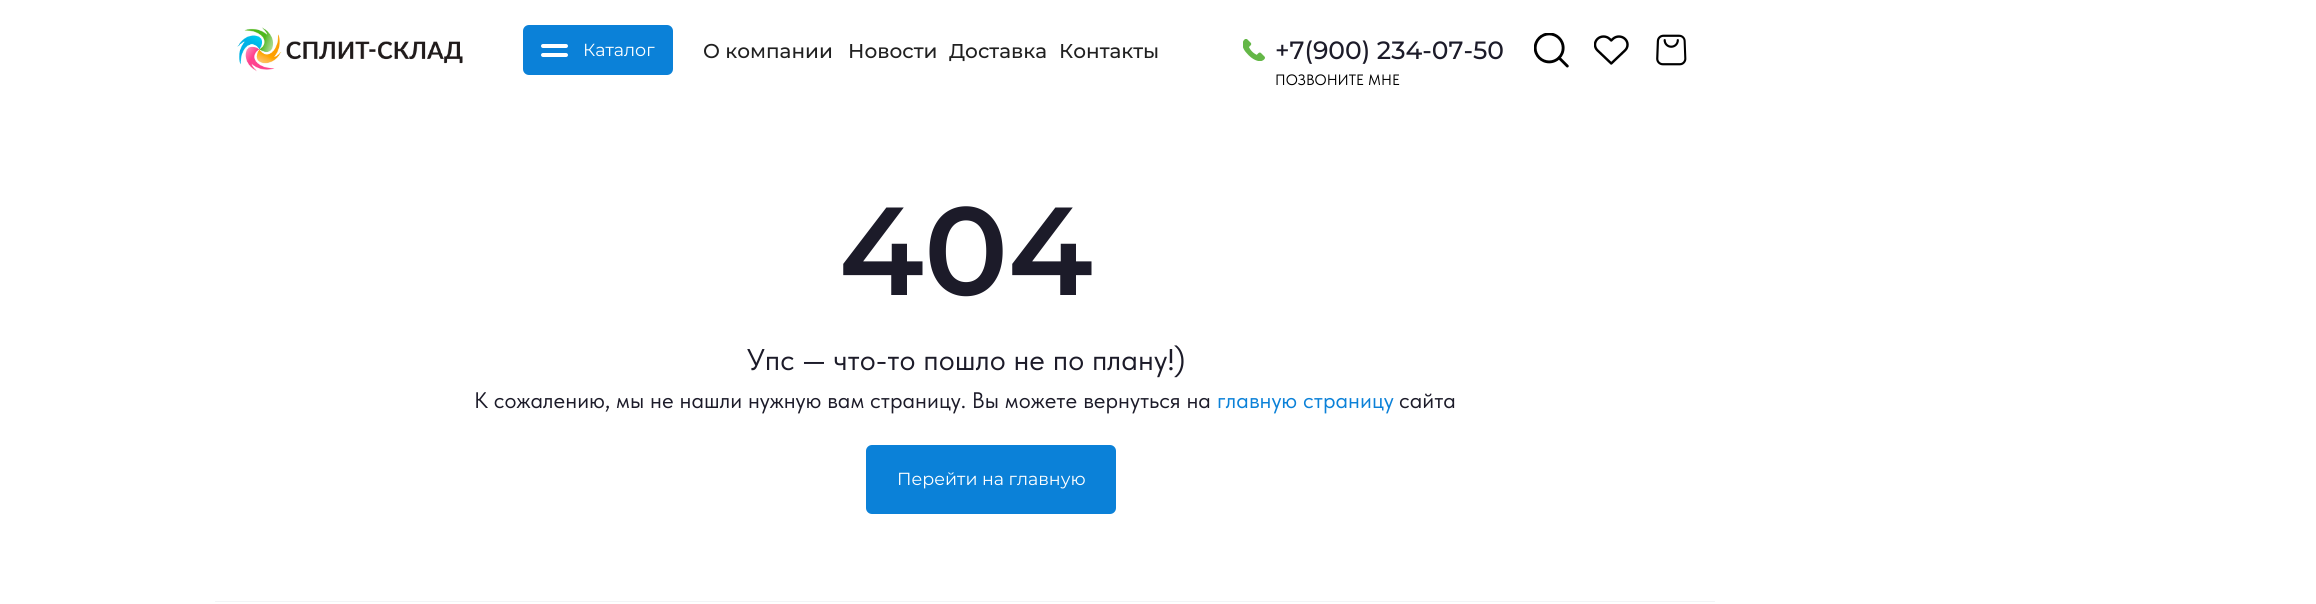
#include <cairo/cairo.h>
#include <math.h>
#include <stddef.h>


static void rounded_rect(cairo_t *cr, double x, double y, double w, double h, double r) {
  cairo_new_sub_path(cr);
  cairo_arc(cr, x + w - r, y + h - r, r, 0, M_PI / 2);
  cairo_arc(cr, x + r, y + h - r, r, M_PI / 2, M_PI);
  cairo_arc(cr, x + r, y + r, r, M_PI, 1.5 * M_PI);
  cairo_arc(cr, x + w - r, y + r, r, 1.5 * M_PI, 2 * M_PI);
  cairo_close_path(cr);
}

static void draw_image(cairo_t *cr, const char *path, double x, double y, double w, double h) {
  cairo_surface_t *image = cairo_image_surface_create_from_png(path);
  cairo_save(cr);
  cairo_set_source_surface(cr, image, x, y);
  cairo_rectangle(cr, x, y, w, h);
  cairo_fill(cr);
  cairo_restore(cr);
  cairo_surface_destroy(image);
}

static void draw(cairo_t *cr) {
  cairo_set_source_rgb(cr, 1, 1, 1);
  cairo_paint(cr);
  draw_image(cr, "images/1.png", 237, 27, 226, 45);
  cairo_set_source_rgb(cr, 11 / 255.0, 129 / 255.0, 216 / 255.0);
  rounded_rect(cr, 523, 25, 150, 50, 6);
  cairo_fill(cr);
  draw_image(cr, "images/2.png", 1243, 39, 22, 22);
  draw_image(cr, "images/3.png", 1534, 33, 35, 35);
  draw_image(cr, "images/4.png", 1594, 35, 35, 30);
  draw_image(cr, "images/5.png", 1656, 34, 31, 32);
  cairo_set_source_rgb(cr, 1, 1, 1);
  rounded_rect(cr, 541, 44, 27, 4, 2);
  cairo_fill(cr);
  rounded_rect(cr, 541, 53, 27, 4, 2);
  cairo_fill(cr);
  cairo_set_source_rgb(cr, 11 / 255.0, 129 / 255.0, 216 / 255.0);
  rounded_rect(cr, 866, 445, 250, 69, 6);
  cairo_fill(cr);
  cairo_set_source_rgb(cr, 243 / 255.0, 244 / 255.0, 246 / 255.0);
  cairo_rectangle(cr, 215, 601, 1500, 1);
  cairo_fill(cr);
  cairo_select_font_face(cr, "Montserrat Medium", CAIRO_FONT_SLANT_NORMAL, CAIRO_FONT_WEIGHT_NORMAL);
  cairo_set_font_size(cr, 25);
  cairo_set_source_rgb(cr, 28 / 255.0, 27 / 255.0, 41 / 255.0);
  cairo_move_to(cr, 1275, 59);
  cairo_show_text(cr, "+7(900) 234-07-50");
  cairo_select_font_face(cr, "Montserrat", CAIRO_FONT_SLANT_NORMAL, CAIRO_FONT_WEIGHT_NORMAL);
  cairo_set_font_size(cr, 17.5);
  cairo_set_source_rgb(cr, 1, 1, 1);
  cairo_move_to(cr, 583, 56);
  cairo_show_text(cr, "Каталог");
  cairo_select_font_face(cr, "Montserrat Medium", CAIRO_FONT_SLANT_NORMAL, CAIRO_FONT_WEIGHT_NORMAL);
  cairo_set_font_size(cr, 20);
  cairo_set_source_rgb(cr, 33 / 255.0, 33 / 255.0, 33 / 255.0);
  cairo_move_to(cr, 703, 58);
  cairo_show_text(cr, "О компании");
  cairo_move_to(cr, 848, 58);
  cairo_show_text(cr, "Новости");
  cairo_move_to(cr, 949, 58);
  cairo_show_text(cr, "Доставка");
  cairo_move_to(cr, 1059, 58);
  cairo_show_text(cr, "Контакты");
  cairo_select_font_face(cr, "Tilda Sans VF", CAIRO_FONT_SLANT_NORMAL, CAIRO_FONT_WEIGHT_NORMAL);
  cairo_set_font_size(cr, 15);
  cairo_set_source_rgb(cr, 0, 0, 0);
  cairo_move_to(cr, 1275, 85);
  cairo_show_text(cr, "ПОЗВОНИТЕ МНЕ");
  cairo_select_font_face(cr, "Montserrat SemiBold", CAIRO_FONT_SLANT_NORMAL, CAIRO_FONT_WEIGHT_NORMAL);
  cairo_set_font_size(cr, 125);
  cairo_set_source_rgb(cr, 28 / 255.0, 27 / 255.0, 41 / 255.0);
  cairo_move_to(cr, 839, 295);
  cairo_show_text(cr, "404");
  cairo_select_font_face(cr, "Tilda Sans VF", CAIRO_FONT_SLANT_NORMAL, CAIRO_FONT_WEIGHT_NORMAL);
  cairo_set_font_size(cr, 30);
  cairo_move_to(cr, 747, 370);
  cairo_show_text(cr, "Упс — что-то пошло не по плану!)");
  cairo_set_font_size(cr, 22.5);
  cairo_move_to(cr, 474, 408);
  cairo_show_text(cr, "К сожалению, мы не нашли нужную вам страницу. Вы можете вернуться на");
  cairo_set_source_rgb(cr, 11 / 255.0, 129 / 255.0, 216 / 255.0);
  cairo_move_to(cr, 1217, 408);
  cairo_show_text(cr, "главную страницу");
  cairo_set_source_rgb(cr, 28 / 255.0, 27 / 255.0, 41 / 255.0);
  cairo_move_to(cr, 1399, 408);
  cairo_show_text(cr, "сайта");
  cairo_select_font_face(cr, "Montserrat", CAIRO_FONT_SLANT_NORMAL, CAIRO_FONT_WEIGHT_NORMAL);
  cairo_set_font_size(cr, 17.5);
  cairo_set_source_rgb(cr, 1, 1, 1);
  cairo_move_to(cr, 897, 485);
  cairo_show_text(cr, "Перейти на главную");
}

int main(void) {
  cairo_surface_t *surface = cairo_image_surface_create(CAIRO_FORMAT_RGB24, 2316, 604);
  cairo_t *cr = cairo_create(surface);
  cairo_font_options_t *options = cairo_font_options_create();
  cairo_font_options_set_hint_metrics(options, CAIRO_HINT_METRICS_OFF);
  cairo_font_options_set_hint_style(options, CAIRO_HINT_STYLE_NONE);
  cairo_set_font_options(cr, options);
  cairo_set_miter_limit(cr, 4);
  draw(cr);
  cairo_surface_write_to_png(surface, "out.png");
  cairo_font_options_destroy(options);
  cairo_destroy(cr);
  cairo_surface_destroy(surface);
  return 0;
}
